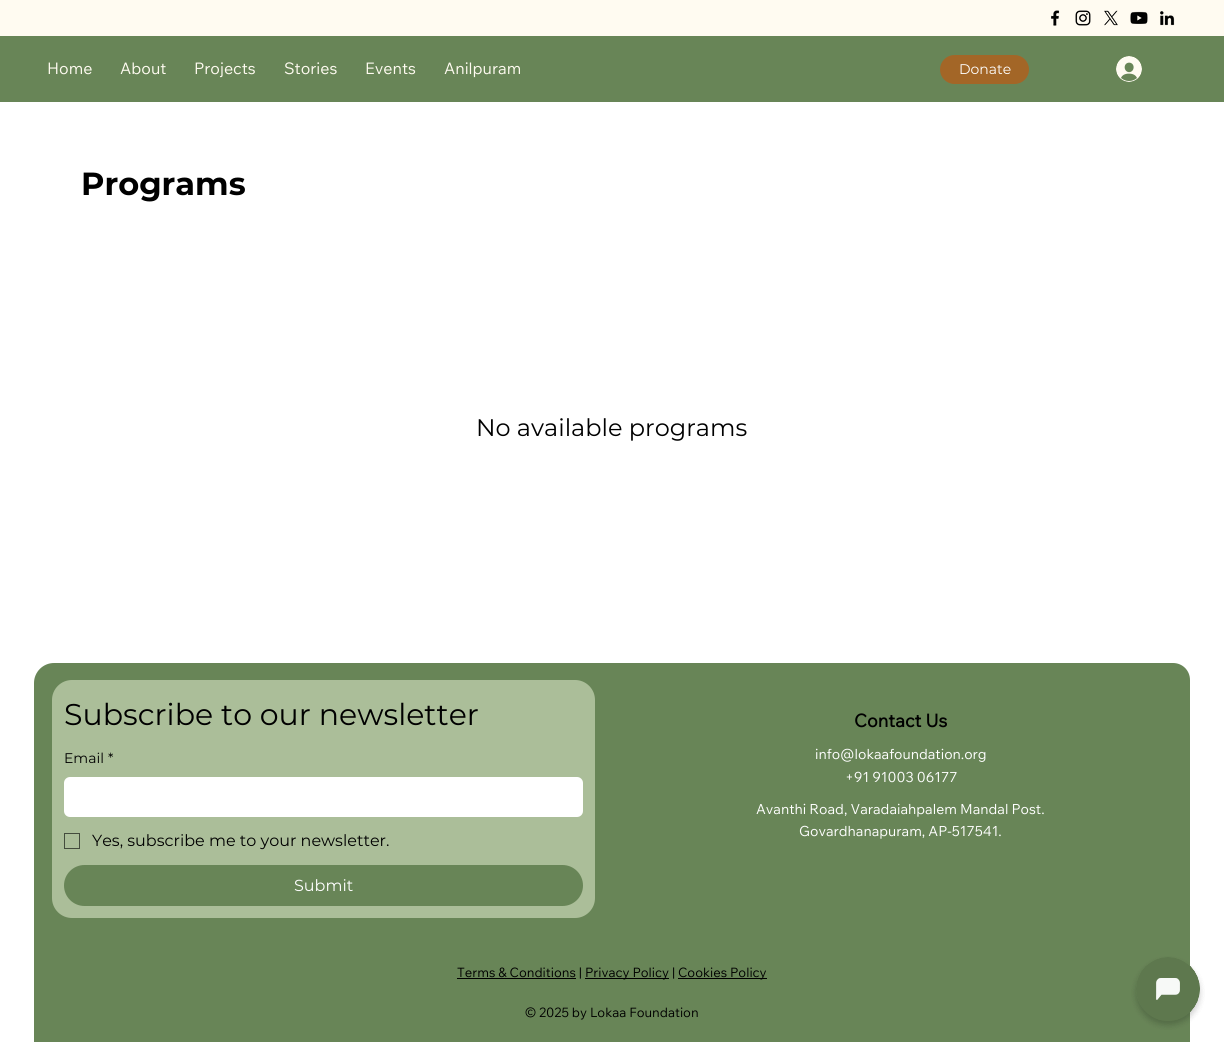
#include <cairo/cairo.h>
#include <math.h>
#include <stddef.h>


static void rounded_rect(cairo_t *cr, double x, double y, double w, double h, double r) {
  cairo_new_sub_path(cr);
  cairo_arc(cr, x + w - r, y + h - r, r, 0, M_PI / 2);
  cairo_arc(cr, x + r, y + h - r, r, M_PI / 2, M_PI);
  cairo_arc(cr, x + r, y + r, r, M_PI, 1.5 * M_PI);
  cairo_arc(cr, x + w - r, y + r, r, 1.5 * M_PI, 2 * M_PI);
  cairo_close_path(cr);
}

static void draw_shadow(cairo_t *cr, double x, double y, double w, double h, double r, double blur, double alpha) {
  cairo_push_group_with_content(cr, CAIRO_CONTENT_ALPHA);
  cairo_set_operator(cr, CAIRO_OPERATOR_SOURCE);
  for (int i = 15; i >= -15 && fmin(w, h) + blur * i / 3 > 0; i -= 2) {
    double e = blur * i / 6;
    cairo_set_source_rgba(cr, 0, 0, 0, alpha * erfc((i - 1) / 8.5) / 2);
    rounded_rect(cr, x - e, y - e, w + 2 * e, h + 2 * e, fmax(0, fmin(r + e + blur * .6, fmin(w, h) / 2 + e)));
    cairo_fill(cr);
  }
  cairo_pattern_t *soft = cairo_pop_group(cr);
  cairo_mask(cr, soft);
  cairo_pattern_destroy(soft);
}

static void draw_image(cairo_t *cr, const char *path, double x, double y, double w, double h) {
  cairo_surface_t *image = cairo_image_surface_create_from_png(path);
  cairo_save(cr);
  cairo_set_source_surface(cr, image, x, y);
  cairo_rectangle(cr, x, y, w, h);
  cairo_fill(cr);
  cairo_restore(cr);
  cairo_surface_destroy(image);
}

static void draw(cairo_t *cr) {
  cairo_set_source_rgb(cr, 1, 1, 1);
  cairo_paint(cr);
  cairo_set_source_rgb(cr, 1, 251 / 255.0, 241 / 255.0);
  cairo_rectangle(cr, 0, 0, 1224, 36);
  cairo_fill(cr);
  draw_image(cr, "images/1.png", 1051, 10, 9, 16);
  draw_image(cr, "images/2.png", 1075, 10, 16, 16);
  draw_image(cr, "images/3.png", 1104, 10, 14, 16);
  draw_image(cr, "images/4.png", 1130, 11, 18, 13);
  draw_image(cr, "images/5.png", 1160, 11, 15, 15);
  cairo_set_source_rgb(cr, 104 / 255.0, 133 / 255.0, 87 / 255.0);
  cairo_rectangle(cr, 0, 36, 1224, 66);
  cairo_fill(cr);
  cairo_set_source_rgb(cr, 163 / 255.0, 102 / 255.0, 39 / 255.0);
  rounded_rect(cr, 940, 55, 89, 29, 14.5);
  cairo_fill(cr);
  draw_image(cr, "images/6.png", 1116, 56, 26, 26);
  cairo_set_source_rgb(cr, 104 / 255.0, 133 / 255.0, 87 / 255.0);
  cairo_new_path(cr);
  cairo_move_to(cr, 54, 663);
  cairo_line_to(cr, 612, 663);
  cairo_line_to(cr, 612, 943);
  cairo_line_to(cr, 34, 943);
  cairo_line_to(cr, 34, 683);
  cairo_curve_to(cr, 34, 672, 43, 663, 54, 663);
  cairo_close_path(cr);
  cairo_fill(cr);
  cairo_set_source_rgb(cr, 171 / 255.0, 190 / 255.0, 153 / 255.0);
  rounded_rect(cr, 52, 680, 543, 238, 20);
  cairo_fill(cr);
  cairo_set_source_rgb(cr, 1, 1, 1);
  rounded_rect(cr, 64, 777, 519, 40, 6);
  cairo_fill(cr);
  cairo_rectangle(cr, 64.5, 833.5, 15, 15);
  cairo_set_source_rgb(cr, 68 / 255.0, 76 / 255.0, 61 / 255.0);
  cairo_set_line_width(cr, 1);
  cairo_stroke(cr);
  cairo_set_source_rgb(cr, 104 / 255.0, 133 / 255.0, 87 / 255.0);
  rounded_rect(cr, 64, 865, 519, 41, 20.5);
  cairo_fill(cr);
  cairo_new_path(cr);
  cairo_move_to(cr, 612, 663);
  cairo_line_to(cr, 1173, 663);
  cairo_curve_to(cr, 1182.5, 663, 1190, 670.5, 1190, 680);
  cairo_line_to(cr, 1190, 943);
  cairo_line_to(cr, 612, 943);
  cairo_close_path(cr);
  cairo_fill(cr);
  cairo_rectangle(cr, 34, 943, 1156, 99);
  cairo_fill(cr);
  cairo_set_source_rgb(cr, 0, 0, 0);
  cairo_rectangle(cr, 457, 978, 119, 1);
  cairo_fill(cr);
  cairo_rectangle(cr, 585, 978, 84, 1);
  cairo_fill(cr);
  cairo_rectangle(cr, 678, 978, 89, 1);
  cairo_fill(cr);
  cairo_set_source_rgb(cr, 0, 0, 0);
  draw_shadow(cr, 1136, 961, 64, 64, 32, 3, 0.1);
  draw_image(cr, "images/7.png", 1136, 957, 64, 64);
  cairo_save(cr);
  cairo_set_fill_rule(cr, CAIRO_FILL_RULE_EVEN_ODD);
  cairo_new_path(cr);
  cairo_move_to(cr, 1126, 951);
  cairo_line_to(cr, 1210, 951);
  cairo_line_to(cr, 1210, 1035);
  cairo_line_to(cr, 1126, 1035);
  cairo_close_path(cr);
  cairo_move_to(cr, 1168, 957);
  cairo_curve_to(cr, 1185.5, 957, 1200, 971.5, 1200, 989);
  cairo_curve_to(cr, 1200, 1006.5, 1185.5, 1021, 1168, 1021);
  cairo_curve_to(cr, 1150.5, 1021, 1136, 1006.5, 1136, 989);
  cairo_curve_to(cr, 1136, 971.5, 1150.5, 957, 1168, 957);
  cairo_close_path(cr);
  cairo_clip(cr);
  draw_shadow(cr, 1136, 961, 64, 64, 32, 3, 0.1);
  cairo_restore(cr);
  draw_image(cr, "images/8.png", 1190, 966, 10, 46);
  cairo_select_font_face(cr, "Wix Madefor Text", CAIRO_FONT_SLANT_NORMAL, CAIRO_FONT_WEIGHT_NORMAL);
  cairo_set_font_size(cr, 16);
  cairo_set_source_rgb(cr, 1, 251 / 255.0, 241 / 255.0);
  cairo_move_to(cr, 47, 74);
  cairo_show_text(cr, "Home");
  cairo_move_to(cr, 120, 74);
  cairo_show_text(cr, "About");
  cairo_move_to(cr, 194, 74);
  cairo_show_text(cr, "Projects");
  cairo_move_to(cr, 284, 74);
  cairo_show_text(cr, "Stories");
  cairo_move_to(cr, 365, 74);
  cairo_show_text(cr, "Events");
  cairo_move_to(cr, 444, 74);
  cairo_show_text(cr, "Anilpuram");
  cairo_select_font_face(cr, "Montserrat", CAIRO_FONT_SLANT_NORMAL, CAIRO_FONT_WEIGHT_NORMAL);
  cairo_set_font_size(cr, 14);
  cairo_set_source_rgb(cr, 1, 1, 1);
  cairo_move_to(cr, 959, 74);
  cairo_show_text(cr, "Donate");
  cairo_select_font_face(cr, "Montserrat", CAIRO_FONT_SLANT_NORMAL, CAIRO_FONT_WEIGHT_BOLD);
  cairo_set_font_size(cr, 32);
  cairo_set_source_rgb(cr, 0, 0, 0);
  cairo_move_to(cr, 81, 195);
  cairo_show_text(cr, "Programs");
  cairo_select_font_face(cr, "Montserrat", CAIRO_FONT_SLANT_NORMAL, CAIRO_FONT_WEIGHT_NORMAL);
  cairo_set_font_size(cr, 24);
  cairo_move_to(cr, 476, 436);
  cairo_show_text(cr, "No available programs");
  cairo_set_font_size(cr, 30);
  cairo_move_to(cr, 64, 725);
  cairo_show_text(cr, "Subscribe to our newsletter");
  cairo_set_font_size(cr, 14);
  cairo_move_to(cr, 64, 763);
  cairo_show_text(cr, "Email");
  cairo_move_to(cr, 108, 763);
  cairo_show_text(cr, "*");
  cairo_set_font_size(cr, 16);
  cairo_move_to(cr, 92, 846);
  cairo_show_text(cr, "Yes, subscribe me to your newsletter.");
  cairo_set_source_rgb(cr, 1, 1, 1);
  cairo_move_to(cr, 294, 891);
  cairo_show_text(cr, "Submit");
  cairo_select_font_face(cr, "Wix Madefor Text", CAIRO_FONT_SLANT_NORMAL, CAIRO_FONT_WEIGHT_BOLD);
  cairo_set_font_size(cr, 18);
  cairo_set_source_rgb(cr, 0, 0, 0);
  cairo_move_to(cr, 854, 727);
  cairo_show_text(cr, "Contact Us");
  cairo_select_font_face(cr, "Wix Madefor Text", CAIRO_FONT_SLANT_NORMAL, CAIRO_FONT_WEIGHT_NORMAL);
  cairo_set_font_size(cr, 14);
  cairo_set_source_rgb(cr, 1, 1, 1);
  cairo_move_to(cr, 815, 759);
  cairo_show_text(cr, "info@lokaafoundation.org");
  cairo_move_to(cr, 845, 782);
  cairo_show_text(cr, "+91 91003 06177");
  cairo_move_to(cr, 756, 814);
  cairo_show_text(cr, "Avanthi Road, Varadaiahpalem Mandal Post.");
  cairo_move_to(cr, 799, 836);
  cairo_show_text(cr, "Govardhanapuram, AP-517541.");
  cairo_set_font_size(cr, 13);
  cairo_set_source_rgb(cr, 0, 0, 0);
  cairo_move_to(cr, 457, 977);
  cairo_show_text(cr, "Terms & Conditions |");
  cairo_move_to(cr, 585, 977);
  cairo_show_text(cr, "Privacy Policy |");
  cairo_move_to(cr, 678, 977);
  cairo_show_text(cr, "Cookies Policy");
  cairo_move_to(cr, 525, 1017);
  cairo_show_text(cr, "© 2025 by Lokaa Foundation");
}

int main(void) {
  cairo_surface_t *surface = cairo_image_surface_create(CAIRO_FORMAT_RGB24, 1224, 1045);
  cairo_t *cr = cairo_create(surface);
  cairo_font_options_t *options = cairo_font_options_create();
  cairo_font_options_set_hint_metrics(options, CAIRO_HINT_METRICS_OFF);
  cairo_font_options_set_hint_style(options, CAIRO_HINT_STYLE_NONE);
  cairo_set_font_options(cr, options);
  cairo_set_miter_limit(cr, 4);
  draw(cr);
  cairo_surface_write_to_png(surface, "out.png");
  cairo_font_options_destroy(options);
  cairo_destroy(cr);
  cairo_surface_destroy(surface);
  return 0;
}
